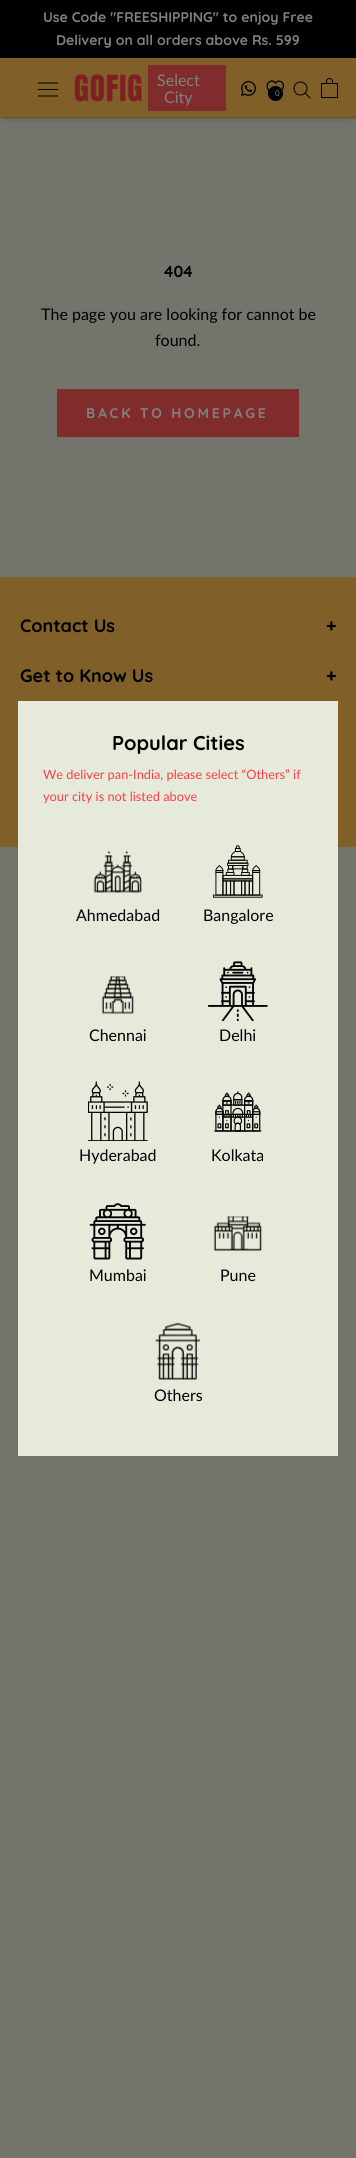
#include <cairo/cairo.h>
#include <math.h>
#include <stddef.h>


static void draw_spaced(cairo_t *cr, double x, double y, const char *s, double letter, double word) {
  cairo_move_to(cr, x, y);
  while (*s) {
    char ch[5] = {0};
    int n = 0;
    do ch[n++] = *s++; while ((*s & 0xC0) == 0x80);
    cairo_show_text(cr, ch);
    cairo_rel_move_to(cr, letter + word * (*ch == ' '), 0);
  }
}

static void rounded_rect(cairo_t *cr, double x, double y, double w, double h, double r) {
  cairo_new_sub_path(cr);
  cairo_arc(cr, x + w - r, y + h - r, r, 0, M_PI / 2);
  cairo_arc(cr, x + r, y + h - r, r, M_PI / 2, M_PI);
  cairo_arc(cr, x + r, y + r, r, M_PI, 1.5 * M_PI);
  cairo_arc(cr, x + w - r, y + r, r, 1.5 * M_PI, 2 * M_PI);
  cairo_close_path(cr);
}

static void draw_shadow(cairo_t *cr, double x, double y, double w, double h, double r, double blur, double alpha) {
  cairo_push_group_with_content(cr, CAIRO_CONTENT_ALPHA);
  cairo_set_operator(cr, CAIRO_OPERATOR_SOURCE);
  for (int i = 15; i >= -15 && fmin(w, h) + blur * i / 3 > 0; i -= 2) {
    double e = blur * i / 6;
    cairo_set_source_rgba(cr, 0, 0, 0, alpha * erfc((i - 1) / 8.5) / 2);
    rounded_rect(cr, x - e, y - e, w + 2 * e, h + 2 * e, fmax(0, fmin(r + e + blur * .6, fmin(w, h) / 2 + e)));
    cairo_fill(cr);
  }
  cairo_pattern_t *soft = cairo_pop_group(cr);
  cairo_mask(cr, soft);
  cairo_pattern_destroy(soft);
}

static void draw_image(cairo_t *cr, const char *path, double x, double y, double w, double h) {
  cairo_surface_t *image = cairo_image_surface_create_from_png(path);
  cairo_save(cr);
  cairo_set_source_surface(cr, image, x, y);
  cairo_rectangle(cr, x, y, w, h);
  cairo_fill(cr);
  cairo_restore(cr);
  cairo_surface_destroy(image);
}

static void draw(cairo_t *cr) {
  cairo_set_source_rgb(cr, 115 / 255.0, 117 / 255.0, 109 / 255.0);
  cairo_paint(cr);
  cairo_set_source_rgb(cr, 0, 0, 0);
  cairo_rectangle(cr, 0, 0, 356, 58);
  cairo_fill(cr);
  cairo_set_source_rgb(cr, 128 / 255.0, 96 / 255.0, 40 / 255.0);
  cairo_rectangle(cr, 0, 58, 356, 59);
  cairo_fill(cr);
  cairo_set_source_rgb(cr, 109 / 255.0, 82 / 255.0, 34 / 255.0);
  cairo_rectangle(cr, 0, 117, 356, 1);
  cairo_fill(cr);
  cairo_save(cr);
  cairo_set_fill_rule(cr, CAIRO_FILL_RULE_EVEN_ODD);
  cairo_new_path(cr);
  cairo_move_to(cr, 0, 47);
  cairo_line_to(cr, 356, 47);
  cairo_line_to(cr, 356, 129);
  cairo_line_to(cr, 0, 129);
  cairo_close_path(cr);
  cairo_move_to(cr, 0, 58);
  cairo_line_to(cr, 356, 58);
  cairo_line_to(cr, 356, 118);
  cairo_line_to(cr, 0, 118);
  cairo_close_path(cr);
  cairo_clip(cr);
  cairo_set_source_rgb(cr, 0, 0, 0);
  draw_shadow(cr, 5, 63, 346, 50, 0, 5, 1);
  cairo_restore(cr);
  draw_image(cr, "images/1.png", 38, 82, 20, 15);
  draw_image(cr, "images/2.png", 74, 74, 68, 28);
  cairo_set_source_rgb(cr, 128 / 255.0, 44 / 255.0, 44 / 255.0);
  cairo_rectangle(cr, 148, 65, 78, 46);
  cairo_fill(cr);
  draw_image(cr, "images/3.png", 241, 81, 15, 15);
  cairo_new_path(cr);
  cairo_move_to(cr, 275.5, 95.5);
  cairo_line_to(cr, 271.5, 93.5);
  cairo_curve_to(cr, 270, 92, 268, 90, 267.5, 88);
  cairo_curve_to(cr, 265.5, 82.5, 272, 78.5, 275.5, 83);
  cairo_curve_to(cr, 279.5, 77.5, 289, 85, 279, 93);
  cairo_close_path(cr);
  cairo_set_source_rgb(cr, 0, 0, 0);
  cairo_set_line_width(cr, 1.3);
  cairo_stroke(cr);
  cairo_arc(cr, 275.5, 93.5, 7.5, 0, 2 * M_PI);
  cairo_fill(cr);
  cairo_new_path(cr);
  cairo_move_to(cr, 310, 98);
  cairo_line_to(cr, 305, 93);
  cairo_set_line_width(cr, 1);
  cairo_set_line_cap(cr, CAIRO_LINE_CAP_SQUARE);
  cairo_stroke(cr);
  cairo_arc(cr, 300.5, 88.5, 6.5, 0, 2 * M_PI);
  cairo_set_line_cap(cr, CAIRO_LINE_CAP_BUTT);
  cairo_stroke(cr);
  draw_image(cr, "images/4.png", 321, 78, 17, 20);
  cairo_rectangle(cr, 57.5, 389.5, 241, 47);
  cairo_set_source_rgb(cr, 128 / 255.0, 44 / 255.0, 44 / 255.0);
  cairo_stroke(cr);
  cairo_rectangle(cr, 58, 390, 240, 46);
  cairo_fill(cr);
  cairo_set_source_rgb(cr, 128 / 255.0, 96 / 255.0, 40 / 255.0);
  cairo_rectangle(cr, 0, 577, 356, 270);
  cairo_fill(cr);
  cairo_set_source_rgb(cr, 230 / 255.0, 234 / 255.0, 218 / 255.0);
  cairo_rectangle(cr, 18, 701, 320, 755);
  cairo_fill(cr);
  draw_image(cr, "images/5.png", 93, 851, 49, 42);
  draw_image(cr, "images/6.png", 212, 845, 51, 53);
  draw_image(cr, "images/7.png", 101, 976, 33, 38);
  draw_image(cr, "images/8.png", 208, 961, 60, 60);
  draw_image(cr, "images/9.png", 88, 1081, 60, 60);
  draw_image(cr, "images/10.png", 214, 1091, 48, 41);
  draw_image(cr, "images/11.png", 89, 1203, 57, 57);
  draw_image(cr, "images/12.png", 213, 1216, 49, 35);
  draw_image(cr, "images/13.png", 155, 1322, 46, 58);
  cairo_select_font_face(cr, "Quicksand", CAIRO_FONT_SLANT_NORMAL, CAIRO_FONT_WEIGHT_BOLD);
  cairo_set_font_size(cr, 14);
  cairo_set_source_rgb(cr, 128 / 255.0, 128 / 255.0, 128 / 255.0);
  cairo_move_to(cr, 43, 22);
  cairo_show_text(cr, "Use Code \"FREESHIPPING\" to enjoy Free");
  cairo_move_to(cr, 56, 45);
  cairo_show_text(cr, "Delivery on all orders above Rs. 599");
  cairo_select_font_face(cr, "Lato", CAIRO_FONT_SLANT_NORMAL, CAIRO_FONT_WEIGHT_NORMAL);
  cairo_set_font_size(cr, 16);
  cairo_move_to(cr, 157, 86);
  cairo_show_text(cr, "Select");
  cairo_move_to(cr, 164, 103);
  cairo_show_text(cr, "City");
  cairo_set_font_size(cr, 8);
  cairo_move_to(cr, 275, 96);
  cairo_show_text(cr, "0");
  cairo_select_font_face(cr, "Quicksand", CAIRO_FONT_SLANT_NORMAL, CAIRO_FONT_WEIGHT_BOLD);
  cairo_set_font_size(cr, 16);
  cairo_set_source_rgb(cr, 0, 0, 0);
  cairo_move_to(cr, 164, 277);
  cairo_show_text(cr, "404");
  cairo_select_font_face(cr, "Lato", CAIRO_FONT_SLANT_NORMAL, CAIRO_FONT_WEIGHT_NORMAL);
  cairo_move_to(cr, 41, 320);
  cairo_show_text(cr, "The page you are looking for cannot be");
  cairo_move_to(cr, 155, 346);
  cairo_show_text(cr, "found.");
  cairo_select_font_face(cr, "Quicksand", CAIRO_FONT_SLANT_NORMAL, CAIRO_FONT_WEIGHT_BOLD);
  cairo_set_font_size(cr, 14);
  cairo_set_source_rgb(cr, 128 / 255.0, 128 / 255.0, 128 / 255.0);
  draw_spaced(cr, 86, 418, "BACK TO HOMEPAGE", 2.75, 0);
  cairo_set_font_size(cr, 18);
  cairo_set_source_rgb(cr, 0, 0, 0);
  cairo_move_to(cr, 20, 632);
  cairo_show_text(cr, "Contact Us");
  cairo_move_to(cr, 326, 632);
  cairo_show_text(cr, "+");
  cairo_move_to(cr, 20, 682);
  cairo_show_text(cr, "Get to Know Us");
  cairo_move_to(cr, 326, 682);
  cairo_show_text(cr, "+");
  cairo_set_font_size(cr, 20);
  cairo_move_to(cr, 112, 750);
  cairo_show_text(cr, "Popular Cities");
  cairo_select_font_face(cr, "Lato", CAIRO_FONT_SLANT_NORMAL, CAIRO_FONT_WEIGHT_NORMAL);
  cairo_set_font_size(cr, 12.8);
  cairo_set_source_rgb(cr, 253 / 255.0, 61 / 255.0, 71 / 255.0);
  cairo_move_to(cr, 43, 779);
  cairo_show_text(cr, "We deliver pan-India, please select “Others” if");
  cairo_move_to(cr, 43, 801);
  cairo_show_text(cr, "your city is not listed above");
  cairo_set_font_size(cr, 16);
  cairo_set_source_rgb(cr, 0, 0, 0);
  cairo_move_to(cr, 76, 921);
  cairo_show_text(cr, "Ahmedabad");
  cairo_move_to(cr, 203, 921);
  cairo_show_text(cr, "Bangalore");
  cairo_move_to(cr, 89, 1041);
  cairo_show_text(cr, "Chennai");
  cairo_move_to(cr, 219, 1041);
  cairo_show_text(cr, "Delhi");
  cairo_move_to(cr, 79, 1161);
  cairo_show_text(cr, "Hyderabad");
  cairo_move_to(cr, 211, 1161);
  cairo_show_text(cr, "Kolkata");
  cairo_move_to(cr, 89, 1281);
  cairo_show_text(cr, "Mumbai");
  cairo_move_to(cr, 220, 1281);
  cairo_show_text(cr, "Pune");
  cairo_move_to(cr, 154, 1401);
  cairo_show_text(cr, "Others");
}

int main(void) {
  cairo_surface_t *surface = cairo_image_surface_create(CAIRO_FORMAT_RGB24, 356, 2158);
  cairo_t *cr = cairo_create(surface);
  cairo_font_options_t *options = cairo_font_options_create();
  cairo_font_options_set_hint_metrics(options, CAIRO_HINT_METRICS_OFF);
  cairo_font_options_set_hint_style(options, CAIRO_HINT_STYLE_NONE);
  cairo_set_font_options(cr, options);
  cairo_set_miter_limit(cr, 4);
  draw(cr);
  cairo_surface_write_to_png(surface, "out.png");
  cairo_font_options_destroy(options);
  cairo_destroy(cr);
  cairo_surface_destroy(surface);
  return 0;
}
